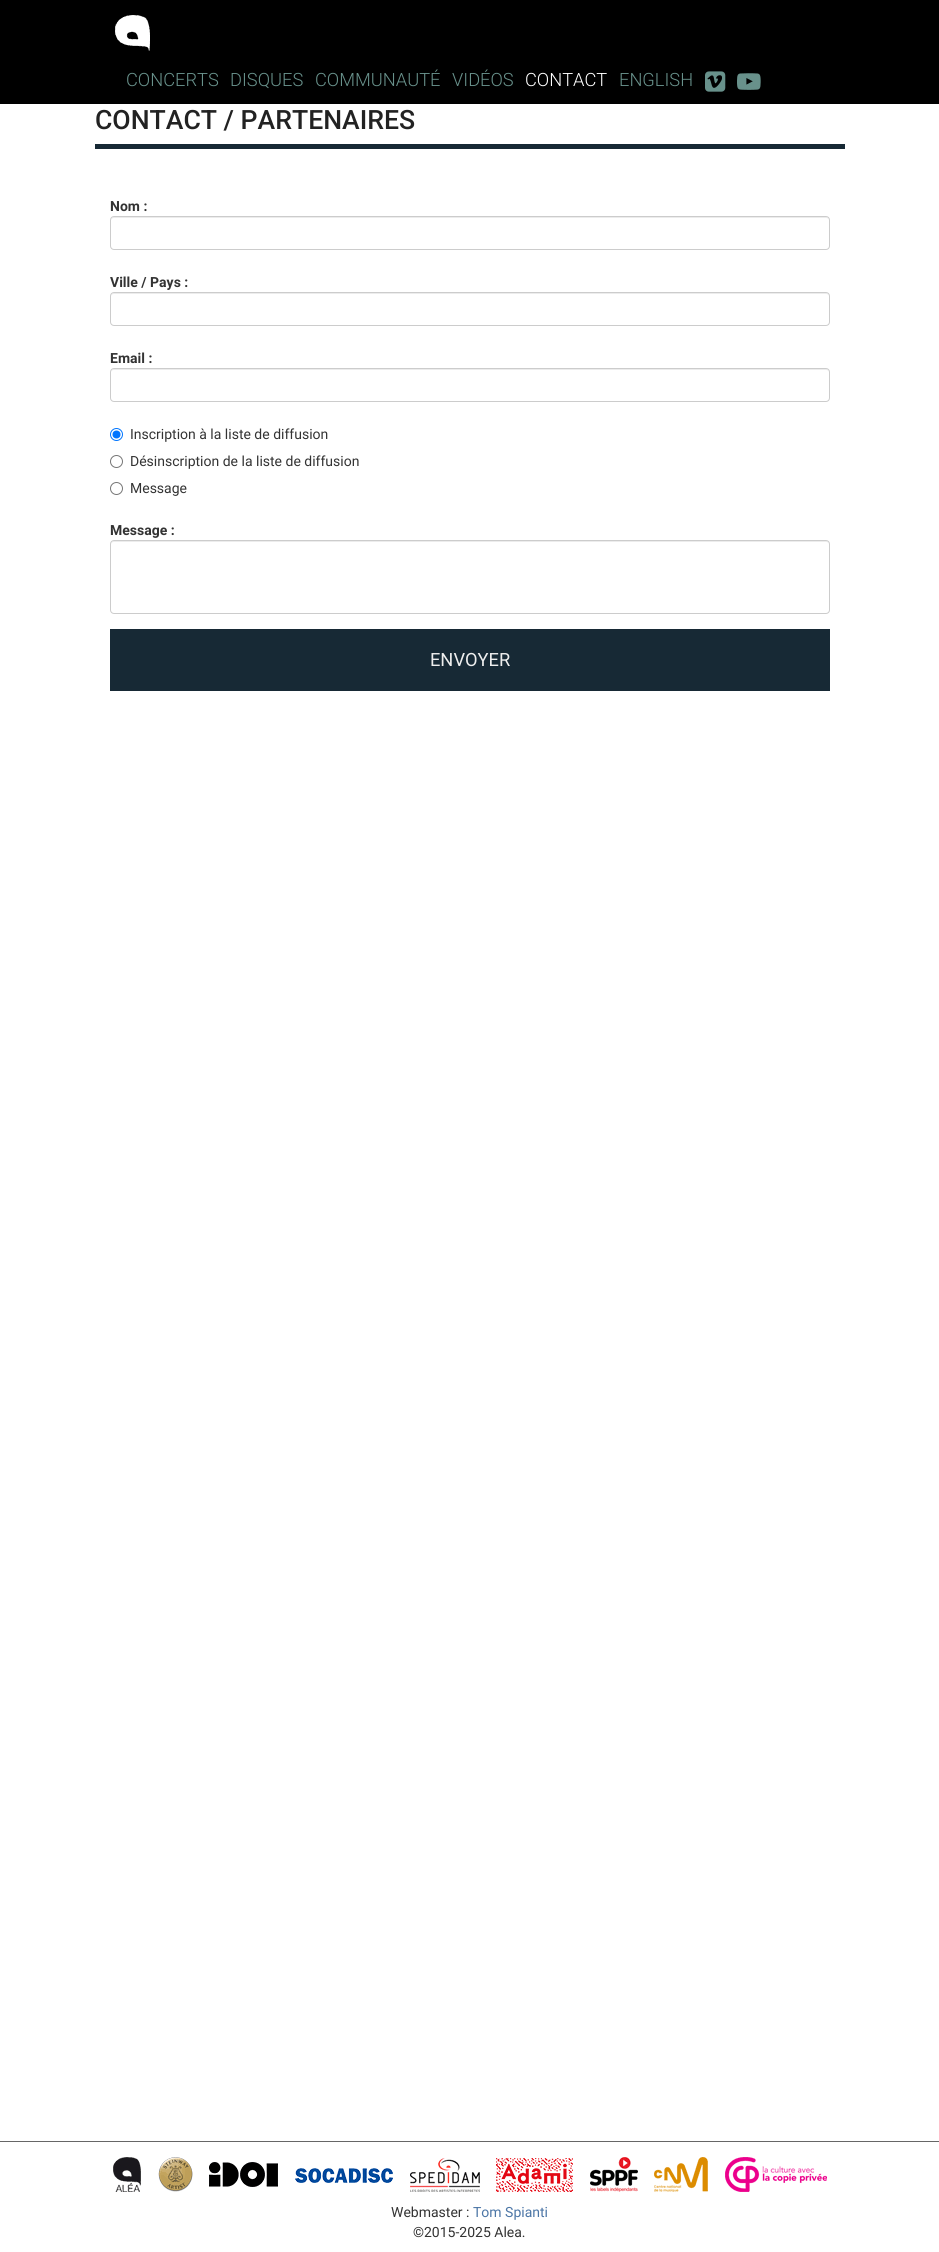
#include <cairo/cairo.h>
#include <math.h>
#include <stddef.h>


static void rounded_rect(cairo_t *cr, double x, double y, double w, double h, double r) {
  cairo_new_sub_path(cr);
  cairo_arc(cr, x + w - r, y + h - r, r, 0, M_PI / 2);
  cairo_arc(cr, x + r, y + h - r, r, M_PI / 2, M_PI);
  cairo_arc(cr, x + r, y + r, r, M_PI, 1.5 * M_PI);
  cairo_arc(cr, x + w - r, y + r, r, 1.5 * M_PI, 2 * M_PI);
  cairo_close_path(cr);
}

static void draw_image(cairo_t *cr, const char *path, double x, double y, double w, double h) {
  cairo_surface_t *image = cairo_image_surface_create_from_png(path);
  cairo_save(cr);
  cairo_set_source_surface(cr, image, x, y);
  cairo_rectangle(cr, x, y, w, h);
  cairo_fill(cr);
  cairo_restore(cr);
  cairo_surface_destroy(image);
}

static void draw(cairo_t *cr) {
  cairo_set_source_rgb(cr, 1, 1, 1);
  cairo_paint(cr);
  cairo_set_source_rgb(cr, 0, 0, 0);
  cairo_rectangle(cr, 0, 0, 939, 104);
  cairo_fill(cr);
  draw_image(cr, "images/1.png", 115, 15, 35, 36);
  draw_image(cr, "images/2.png", 705, 71, 21, 21);
  draw_image(cr, "images/3.png", 737, 73, 24, 17);
  cairo_set_source_rgb(cr, 23 / 255.0, 41 / 255.0, 53 / 255.0);
  cairo_rectangle(cr, 95, 144, 750, 5);
  cairo_fill(cr);
  cairo_set_source_rgb(cr, 236 / 255.0, 236 / 255.0, 236 / 255.0);
  cairo_new_path(cr);
  cairo_move_to(cr, 114, 218);
  cairo_line_to(cr, 826, 218);
  cairo_curve_to(cr, 828, 218, 829, 219, 829, 221);
  cairo_curve_to(cr, 829, 219, 828, 217, 826, 217);
  cairo_line_to(cr, 114, 217);
  cairo_curve_to(cr, 112, 217, 111, 219, 111, 221);
  cairo_curve_to(cr, 111, 219, 112, 218, 114, 218);
  cairo_close_path(cr);
  cairo_fill(cr);
  rounded_rect(cr, 110.5, 216.5, 719, 33, 3.5);
  cairo_set_source_rgb(cr, 204 / 255.0, 204 / 255.0, 204 / 255.0);
  cairo_set_line_width(cr, 1);
  cairo_stroke(cr);
  cairo_set_source_rgb(cr, 236 / 255.0, 236 / 255.0, 236 / 255.0);
  cairo_new_path(cr);
  cairo_move_to(cr, 114, 294);
  cairo_line_to(cr, 826, 294);
  cairo_curve_to(cr, 828, 294, 829, 295, 829, 297);
  cairo_curve_to(cr, 829, 295, 828, 293, 826, 293);
  cairo_line_to(cr, 114, 293);
  cairo_curve_to(cr, 112, 293, 111, 295, 111, 297);
  cairo_curve_to(cr, 111, 295, 112, 294, 114, 294);
  cairo_close_path(cr);
  cairo_fill(cr);
  rounded_rect(cr, 110.5, 292.5, 719, 33, 3.5);
  cairo_set_source_rgb(cr, 204 / 255.0, 204 / 255.0, 204 / 255.0);
  cairo_stroke(cr);
  cairo_set_source_rgb(cr, 236 / 255.0, 236 / 255.0, 236 / 255.0);
  cairo_new_path(cr);
  cairo_move_to(cr, 114, 370);
  cairo_line_to(cr, 826, 370);
  cairo_curve_to(cr, 828, 370, 829, 371, 829, 373);
  cairo_curve_to(cr, 829, 371, 828, 369, 826, 369);
  cairo_line_to(cr, 114, 369);
  cairo_curve_to(cr, 112, 369, 111, 371, 111, 373);
  cairo_curve_to(cr, 111, 371, 112, 370, 114, 370);
  cairo_close_path(cr);
  cairo_fill(cr);
  rounded_rect(cr, 110.5, 368.5, 719, 33, 3.5);
  cairo_set_source_rgb(cr, 204 / 255.0, 204 / 255.0, 204 / 255.0);
  cairo_stroke(cr);
  cairo_arc(cr, 116.5, 434.5, 6, 0, 2 * M_PI);
  cairo_set_source_rgb(cr, 0, 117 / 255.0, 1);
  cairo_stroke(cr);
  cairo_arc(cr, 116.5, 434.5, 4, 0, 2 * M_PI);
  cairo_fill(cr);
  cairo_arc(cr, 116.5, 461.5, 6, 0, 2 * M_PI);
  cairo_set_source_rgb(cr, 118 / 255.0, 118 / 255.0, 118 / 255.0);
  cairo_stroke(cr);
  cairo_arc(cr, 116.5, 488.5, 6, 0, 2 * M_PI);
  cairo_stroke(cr);
  cairo_set_source_rgb(cr, 236 / 255.0, 236 / 255.0, 236 / 255.0);
  cairo_new_path(cr);
  cairo_move_to(cr, 114, 542);
  cairo_line_to(cr, 826, 542);
  cairo_curve_to(cr, 828, 542, 829, 543, 829, 545);
  cairo_curve_to(cr, 829, 543, 828, 541, 826, 541);
  cairo_line_to(cr, 114, 541);
  cairo_curve_to(cr, 112, 541, 111, 543, 111, 545);
  cairo_curve_to(cr, 111, 543, 112, 542, 114, 542);
  cairo_close_path(cr);
  cairo_fill(cr);
  rounded_rect(cr, 110.5, 540.5, 719, 73, 3.5);
  cairo_set_source_rgb(cr, 204 / 255.0, 204 / 255.0, 204 / 255.0);
  cairo_stroke(cr);
  cairo_set_source_rgb(cr, 23 / 255.0, 41 / 255.0, 53 / 255.0);
  cairo_rectangle(cr, 110, 629, 720, 62);
  cairo_fill(cr);
  cairo_set_source_rgb(cr, 102 / 255.0, 102 / 255.0, 102 / 255.0);
  cairo_rectangle(cr, 0, 2141, 939, 1);
  cairo_fill(cr);
  draw_image(cr, "images/4.png", 113, 2157, 714, 35);
  cairo_select_font_face(cr, "Roboto Light", CAIRO_FONT_SLANT_NORMAL, CAIRO_FONT_WEIGHT_NORMAL);
  cairo_set_font_size(cr, 18.25);
  cairo_set_source_rgb(cr, 104 / 255.0, 145 / 255.0, 139 / 255.0);
  cairo_move_to(cr, 126, 86);
  cairo_show_text(cr, "CONCERTS");
  cairo_move_to(cr, 230, 86);
  cairo_show_text(cr, "DISQUES");
  cairo_move_to(cr, 315, 86);
  cairo_show_text(cr, "COMMUNAUTÉ");
  cairo_move_to(cr, 452, 86);
  cairo_show_text(cr, "VIDÉOS");
  cairo_set_source_rgb(cr, 1, 1, 1);
  cairo_move_to(cr, 525, 86);
  cairo_show_text(cr, "CONTACT");
  cairo_set_source_rgb(cr, 104 / 255.0, 145 / 255.0, 139 / 255.0);
  cairo_move_to(cr, 619, 86);
  cairo_show_text(cr, "ENGLISH");
  cairo_select_font_face(cr, "Roboto Medium", CAIRO_FONT_SLANT_NORMAL, CAIRO_FONT_WEIGHT_NORMAL);
  cairo_set_font_size(cr, 26.6);
  cairo_set_source_rgb(cr, 34 / 255.0, 34 / 255.0, 34 / 255.0);
  cairo_move_to(cr, 95, 129);
  cairo_show_text(cr, "CONTACT / PARTENAIRES");
  cairo_select_font_face(cr, "Roboto", CAIRO_FONT_SLANT_NORMAL, CAIRO_FONT_WEIGHT_BOLD);
  cairo_set_font_size(cr, 14);
  cairo_set_source_rgb(cr, 51 / 255.0, 51 / 255.0, 51 / 255.0);
  cairo_move_to(cr, 110, 211);
  cairo_show_text(cr, "Nom :");
  cairo_move_to(cr, 110, 287);
  cairo_show_text(cr, "Ville / Pays :");
  cairo_move_to(cr, 110, 363);
  cairo_show_text(cr, "Email :");
  cairo_select_font_face(cr, "Roboto", CAIRO_FONT_SLANT_NORMAL, CAIRO_FONT_WEIGHT_NORMAL);
  cairo_move_to(cr, 130, 439);
  cairo_show_text(cr, "Inscription à la liste de diffusion");
  cairo_move_to(cr, 130, 466);
  cairo_show_text(cr, "Désinscription de la liste de diffusion");
  cairo_move_to(cr, 130, 493);
  cairo_show_text(cr, "Message");
  cairo_select_font_face(cr, "Roboto", CAIRO_FONT_SLANT_NORMAL, CAIRO_FONT_WEIGHT_BOLD);
  cairo_move_to(cr, 110, 535);
  cairo_show_text(cr, "Message :");
  cairo_select_font_face(cr, "Roboto", CAIRO_FONT_SLANT_NORMAL, CAIRO_FONT_WEIGHT_NORMAL);
  cairo_set_font_size(cr, 18.25);
  cairo_set_source_rgb(cr, 238 / 255.0, 238 / 255.0, 238 / 255.0);
  cairo_move_to(cr, 430, 666);
  cairo_show_text(cr, "ENVOYER");
  cairo_set_font_size(cr, 14);
  cairo_set_source_rgb(cr, 51 / 255.0, 51 / 255.0, 51 / 255.0);
  cairo_move_to(cr, 391, 2217);
  cairo_show_text(cr, "Webmaster :");
  cairo_set_source_rgb(cr, 76 / 255.0, 118 / 255.0, 166 / 255.0);
  cairo_move_to(cr, 473, 2217);
  cairo_show_text(cr, "Tom Spianti");
  cairo_set_source_rgb(cr, 51 / 255.0, 51 / 255.0, 51 / 255.0);
  cairo_move_to(cr, 413, 2237);
  cairo_show_text(cr, "©2015-2025 Alea.");
}

int main(void) {
  cairo_surface_t *surface = cairo_image_surface_create(CAIRO_FORMAT_RGB24, 939, 2252);
  cairo_t *cr = cairo_create(surface);
  cairo_font_options_t *options = cairo_font_options_create();
  cairo_font_options_set_hint_metrics(options, CAIRO_HINT_METRICS_OFF);
  cairo_font_options_set_hint_style(options, CAIRO_HINT_STYLE_NONE);
  cairo_set_font_options(cr, options);
  cairo_set_miter_limit(cr, 4);
  draw(cr);
  cairo_surface_write_to_png(surface, "out.png");
  cairo_font_options_destroy(options);
  cairo_destroy(cr);
  cairo_surface_destroy(surface);
  return 0;
}
